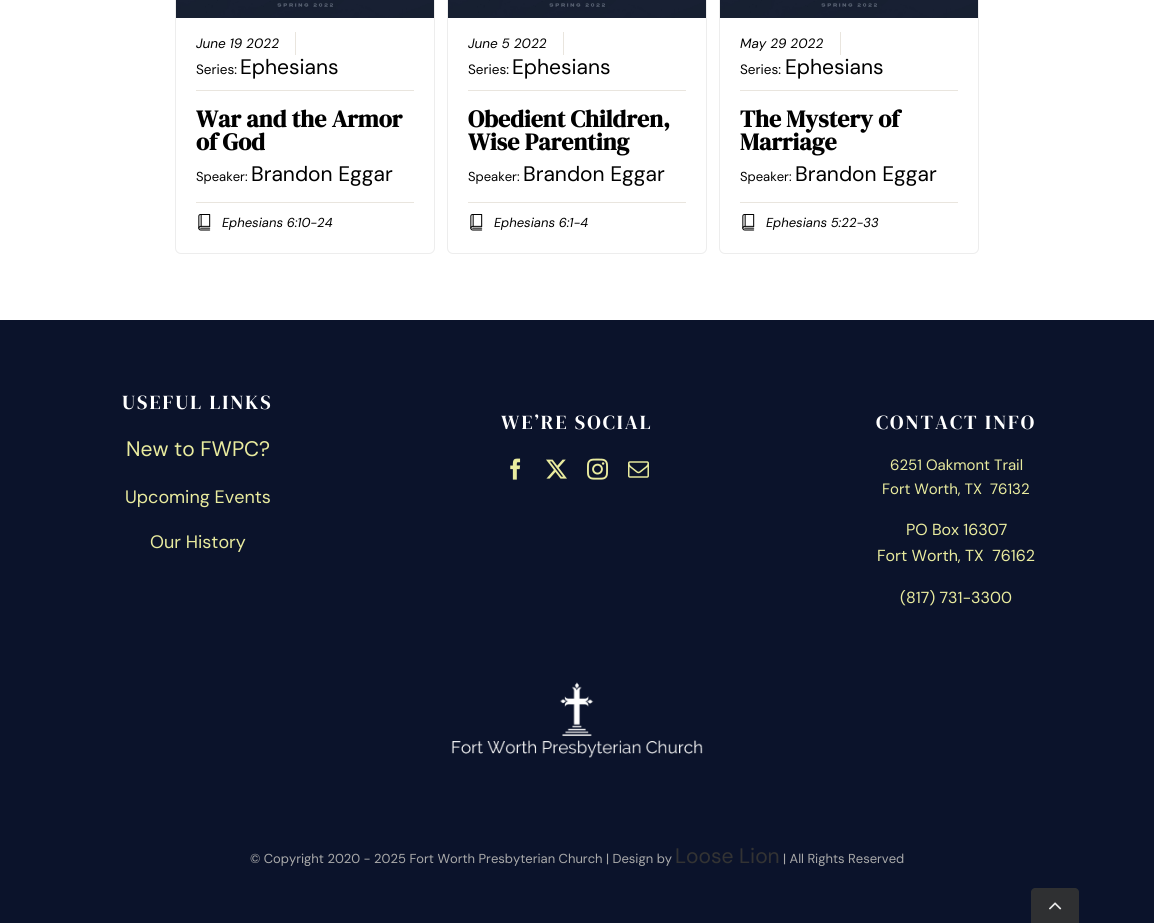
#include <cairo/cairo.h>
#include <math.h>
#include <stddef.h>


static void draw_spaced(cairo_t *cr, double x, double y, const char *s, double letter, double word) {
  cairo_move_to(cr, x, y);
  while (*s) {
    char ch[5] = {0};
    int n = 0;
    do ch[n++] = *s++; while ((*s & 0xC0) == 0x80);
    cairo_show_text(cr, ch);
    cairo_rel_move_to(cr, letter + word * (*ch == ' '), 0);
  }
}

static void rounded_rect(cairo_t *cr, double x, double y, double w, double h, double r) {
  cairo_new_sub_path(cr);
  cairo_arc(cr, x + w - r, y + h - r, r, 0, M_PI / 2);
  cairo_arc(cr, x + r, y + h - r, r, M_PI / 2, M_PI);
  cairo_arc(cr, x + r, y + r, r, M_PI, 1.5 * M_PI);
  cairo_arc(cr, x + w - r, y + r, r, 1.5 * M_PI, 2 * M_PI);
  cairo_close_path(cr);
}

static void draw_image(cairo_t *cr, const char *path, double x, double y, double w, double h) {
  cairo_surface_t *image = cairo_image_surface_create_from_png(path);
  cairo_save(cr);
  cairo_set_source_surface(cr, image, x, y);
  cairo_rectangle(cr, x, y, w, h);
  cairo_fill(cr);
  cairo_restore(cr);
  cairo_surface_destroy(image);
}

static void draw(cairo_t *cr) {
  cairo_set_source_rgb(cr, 1, 1, 1);
  cairo_paint(cr);
  rounded_rect(cr, 175.5, -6.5, 259, 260, 5.5);
  cairo_set_source_rgb(cr, 237 / 255.0, 237 / 255.0, 237 / 255.0);
  cairo_set_line_width(cr, 1);
  cairo_stroke(cr);
  draw_image(cr, "images/1.png", 176, 0, 258, 18);
  cairo_set_source_rgb(cr, 233 / 255.0, 229 / 255.0, 222 / 255.0);
  cairo_rectangle(cr, 196, 90, 218, 1);
  cairo_fill(cr);
  cairo_rectangle(cr, 295, 32, 1, 23);
  cairo_fill(cr);
  cairo_rectangle(cr, 196, 202, 218, 1);
  cairo_fill(cr);
  draw_image(cr, "images/2.png", 198, 214, 13, 17);
  rounded_rect(cr, 447.5, -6.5, 259, 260, 5.5);
  cairo_set_source_rgb(cr, 237 / 255.0, 237 / 255.0, 237 / 255.0);
  cairo_stroke(cr);
  draw_image(cr, "images/1.png", 448, 0, 258, 18);
  cairo_set_source_rgb(cr, 233 / 255.0, 229 / 255.0, 222 / 255.0);
  cairo_rectangle(cr, 468, 90, 218, 1);
  cairo_fill(cr);
  cairo_rectangle(cr, 563, 32, 1, 23);
  cairo_fill(cr);
  cairo_rectangle(cr, 468, 202, 218, 1);
  cairo_fill(cr);
  draw_image(cr, "images/2.png", 470, 214, 13, 17);
  rounded_rect(cr, 719.5, -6.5, 259, 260, 5.5);
  cairo_set_source_rgb(cr, 237 / 255.0, 237 / 255.0, 237 / 255.0);
  cairo_stroke(cr);
  draw_image(cr, "images/1.png", 720, 0, 258, 18);
  cairo_set_source_rgb(cr, 233 / 255.0, 229 / 255.0, 222 / 255.0);
  cairo_rectangle(cr, 740, 90, 218, 1);
  cairo_fill(cr);
  cairo_rectangle(cr, 840, 32, 1, 23);
  cairo_fill(cr);
  cairo_rectangle(cr, 740, 202, 218, 1);
  cairo_fill(cr);
  draw_image(cr, "images/2.png", 742, 214, 13, 17);
  cairo_set_source_rgb(cr, 11 / 255.0, 19 / 255.0, 43 / 255.0);
  cairo_rectangle(cr, 0, 320, 1154, 603);
  cairo_fill(cr);
  draw_image(cr, "images/3.png", 510, 458, 11, 22);
  draw_image(cr, "images/4.png", 546, 459, 21, 20);
  draw_image(cr, "images/5.png", 587, 458, 21, 22);
  draw_image(cr, "images/6.png", 628, 461, 21, 17);
  draw_image(cr, "images/7.png", 451, 682, 252, 76);
  cairo_set_source_rgb(cr, 47 / 255.0, 48 / 255.0, 50 / 255.0);
  cairo_new_path(cr);
  cairo_move_to(cr, 1035, 888);
  cairo_line_to(cr, 1075, 888);
  cairo_curve_to(cr, 1077, 888, 1079, 890, 1079, 892);
  cairo_line_to(cr, 1079, 923);
  cairo_line_to(cr, 1031, 923);
  cairo_line_to(cr, 1031, 892);
  cairo_curve_to(cr, 1031, 890, 1033, 888, 1035, 888);
  cairo_close_path(cr);
  cairo_fill(cr);
  draw_image(cr, "images/8.png", 1049, 902, 13, 8);
  cairo_select_font_face(cr, "DM Sans", CAIRO_FONT_SLANT_ITALIC, CAIRO_FONT_WEIGHT_NORMAL);
  cairo_set_font_size(cr, 13.5);
  cairo_set_source_rgb(cr, 0, 0, 0);
  cairo_move_to(cr, 196, 48);
  cairo_show_text(cr, "June 19 2022");
  cairo_select_font_face(cr, "DM Sans", CAIRO_FONT_SLANT_NORMAL, CAIRO_FONT_WEIGHT_NORMAL);
  cairo_move_to(cr, 196, 74);
  cairo_show_text(cr, "Series:");
  cairo_set_font_size(cr, 21);
  cairo_move_to(cr, 240, 74);
  cairo_show_text(cr, "Ephesians");
  cairo_select_font_face(cr, "DM Serif Display", CAIRO_FONT_SLANT_NORMAL, CAIRO_FONT_WEIGHT_BOLD);
  cairo_set_font_size(cr, 24);
  cairo_move_to(cr, 196, 127);
  cairo_show_text(cr, "War and the Armor");
  cairo_move_to(cr, 196, 150);
  cairo_show_text(cr, "of God");
  cairo_select_font_face(cr, "DM Sans", CAIRO_FONT_SLANT_NORMAL, CAIRO_FONT_WEIGHT_NORMAL);
  cairo_set_font_size(cr, 13);
  cairo_move_to(cr, 196, 181);
  cairo_show_text(cr, "Speaker:");
  cairo_set_font_size(cr, 21);
  cairo_move_to(cr, 251, 181);
  cairo_show_text(cr, "Brandon Eggar");
  cairo_select_font_face(cr, "DM Sans", CAIRO_FONT_SLANT_ITALIC, CAIRO_FONT_WEIGHT_NORMAL);
  cairo_set_font_size(cr, 13);
  cairo_move_to(cr, 222, 227);
  cairo_show_text(cr, "Ephesians 6:10-24");
  cairo_set_font_size(cr, 13.5);
  cairo_move_to(cr, 468, 48);
  cairo_show_text(cr, "June 5 2022");
  cairo_select_font_face(cr, "DM Sans", CAIRO_FONT_SLANT_NORMAL, CAIRO_FONT_WEIGHT_NORMAL);
  cairo_move_to(cr, 468, 74);
  cairo_show_text(cr, "Series:");
  cairo_set_font_size(cr, 21);
  cairo_move_to(cr, 512, 74);
  cairo_show_text(cr, "Ephesians");
  cairo_select_font_face(cr, "DM Serif Display", CAIRO_FONT_SLANT_NORMAL, CAIRO_FONT_WEIGHT_BOLD);
  cairo_set_font_size(cr, 24);
  cairo_move_to(cr, 468, 127);
  cairo_show_text(cr, "Obedient Children,");
  cairo_move_to(cr, 468, 150);
  cairo_show_text(cr, "Wise Parenting");
  cairo_select_font_face(cr, "DM Sans", CAIRO_FONT_SLANT_NORMAL, CAIRO_FONT_WEIGHT_NORMAL);
  cairo_set_font_size(cr, 13);
  cairo_move_to(cr, 468, 181);
  cairo_show_text(cr, "Speaker:");
  cairo_set_font_size(cr, 21);
  cairo_move_to(cr, 523, 181);
  cairo_show_text(cr, "Brandon Eggar");
  cairo_select_font_face(cr, "DM Sans", CAIRO_FONT_SLANT_ITALIC, CAIRO_FONT_WEIGHT_NORMAL);
  cairo_set_font_size(cr, 13);
  cairo_move_to(cr, 494, 227);
  cairo_show_text(cr, "Ephesians 6:1-4");
  cairo_set_font_size(cr, 13.5);
  cairo_move_to(cr, 740, 48);
  cairo_show_text(cr, "May 29 2022");
  cairo_select_font_face(cr, "DM Sans", CAIRO_FONT_SLANT_NORMAL, CAIRO_FONT_WEIGHT_NORMAL);
  cairo_move_to(cr, 740, 74);
  cairo_show_text(cr, "Series:");
  cairo_set_font_size(cr, 21);
  cairo_move_to(cr, 785, 74);
  cairo_show_text(cr, "Ephesians");
  cairo_select_font_face(cr, "DM Serif Display", CAIRO_FONT_SLANT_NORMAL, CAIRO_FONT_WEIGHT_BOLD);
  cairo_set_font_size(cr, 24);
  cairo_move_to(cr, 740, 127);
  cairo_show_text(cr, "The Mystery of");
  cairo_move_to(cr, 740, 150);
  cairo_show_text(cr, "Marriage");
  cairo_select_font_face(cr, "DM Sans", CAIRO_FONT_SLANT_NORMAL, CAIRO_FONT_WEIGHT_NORMAL);
  cairo_set_font_size(cr, 13);
  cairo_move_to(cr, 740, 181);
  cairo_show_text(cr, "Speaker:");
  cairo_set_font_size(cr, 21);
  cairo_move_to(cr, 795, 181);
  cairo_show_text(cr, "Brandon Eggar");
  cairo_select_font_face(cr, "DM Sans", CAIRO_FONT_SLANT_ITALIC, CAIRO_FONT_WEIGHT_NORMAL);
  cairo_set_font_size(cr, 13);
  cairo_move_to(cr, 766, 227);
  cairo_show_text(cr, "Ephesians 5:22-33");
  cairo_select_font_face(cr, "DM Serif Display", CAIRO_FONT_SLANT_NORMAL, CAIRO_FONT_WEIGHT_NORMAL);
  cairo_set_font_size(cr, 20);
  cairo_set_source_rgb(cr, 1, 1, 1);
  draw_spaced(cr, 122, 409, "USEFUL LINKS", 2, 0);
  cairo_select_font_face(cr, "DM Sans", CAIRO_FONT_SLANT_NORMAL, CAIRO_FONT_WEIGHT_NORMAL);
  cairo_set_font_size(cr, 21);
  cairo_set_source_rgb(cr, 233 / 255.0, 235 / 255.0, 158 / 255.0);
  cairo_move_to(cr, 126, 456);
  cairo_show_text(cr, "New to FWPC?");
  cairo_set_font_size(cr, 18);
  cairo_move_to(cr, 125, 503);
  cairo_show_text(cr, "Upcoming Events");
  cairo_move_to(cr, 150, 548);
  cairo_show_text(cr, "Our History");
  cairo_select_font_face(cr, "DM Serif Display", CAIRO_FONT_SLANT_NORMAL, CAIRO_FONT_WEIGHT_NORMAL);
  cairo_set_font_size(cr, 20);
  cairo_set_source_rgb(cr, 1, 1, 1);
  draw_spaced(cr, 501, 429, "WE’RE SOCIAL", 2, 0);
  draw_spaced(cr, 876, 429, "CONTACT INFO", 2, 0);
  cairo_select_font_face(cr, "DM Sans", CAIRO_FONT_SLANT_NORMAL, CAIRO_FONT_WEIGHT_NORMAL);
  cairo_set_font_size(cr, 15);
  cairo_set_source_rgb(cr, 233 / 255.0, 235 / 255.0, 158 / 255.0);
  cairo_move_to(cr, 890, 470);
  cairo_show_text(cr, "6251 Oakmont Trail");
  cairo_move_to(cr, 882, 494);
  cairo_show_text(cr, "Fort Worth, TX  76132");
  cairo_set_font_size(cr, 16);
  cairo_move_to(cr, 906, 535);
  cairo_show_text(cr, "PO Box 16307");
  cairo_move_to(cr, 877, 561);
  cairo_show_text(cr, "Fort Worth, TX  76162");
  cairo_move_to(cr, 900, 603);
  cairo_show_text(cr, "(817) 731-3300");
  cairo_set_font_size(cr, 13);
  cairo_set_source_rgb(cr, 170 / 255.0, 170 / 255.0, 170 / 255.0);
  cairo_move_to(cr, 250, 863);
  cairo_show_text(cr, "© Copyright 2020 - 2025 Fort Worth Presbyterian Church | Design by");
  cairo_set_font_size(cr, 21);
  cairo_set_source_rgb(cr, 51 / 255.0, 51 / 255.0, 51 / 255.0);
  cairo_move_to(cr, 675, 863);
  cairo_show_text(cr, "Loose Lion");
  cairo_set_font_size(cr, 13);
  cairo_set_source_rgb(cr, 170 / 255.0, 170 / 255.0, 170 / 255.0);
  cairo_move_to(cr, 783, 863);
  cairo_show_text(cr, "| All Rights Reserved");
}

int main(void) {
  cairo_surface_t *surface = cairo_image_surface_create(CAIRO_FORMAT_RGB24, 1154, 923);
  cairo_t *cr = cairo_create(surface);
  cairo_font_options_t *options = cairo_font_options_create();
  cairo_font_options_set_hint_metrics(options, CAIRO_HINT_METRICS_OFF);
  cairo_font_options_set_hint_style(options, CAIRO_HINT_STYLE_NONE);
  cairo_set_font_options(cr, options);
  cairo_set_miter_limit(cr, 4);
  draw(cr);
  cairo_surface_write_to_png(surface, "out.png");
  cairo_font_options_destroy(options);
  cairo_destroy(cr);
  cairo_surface_destroy(surface);
  return 0;
}
